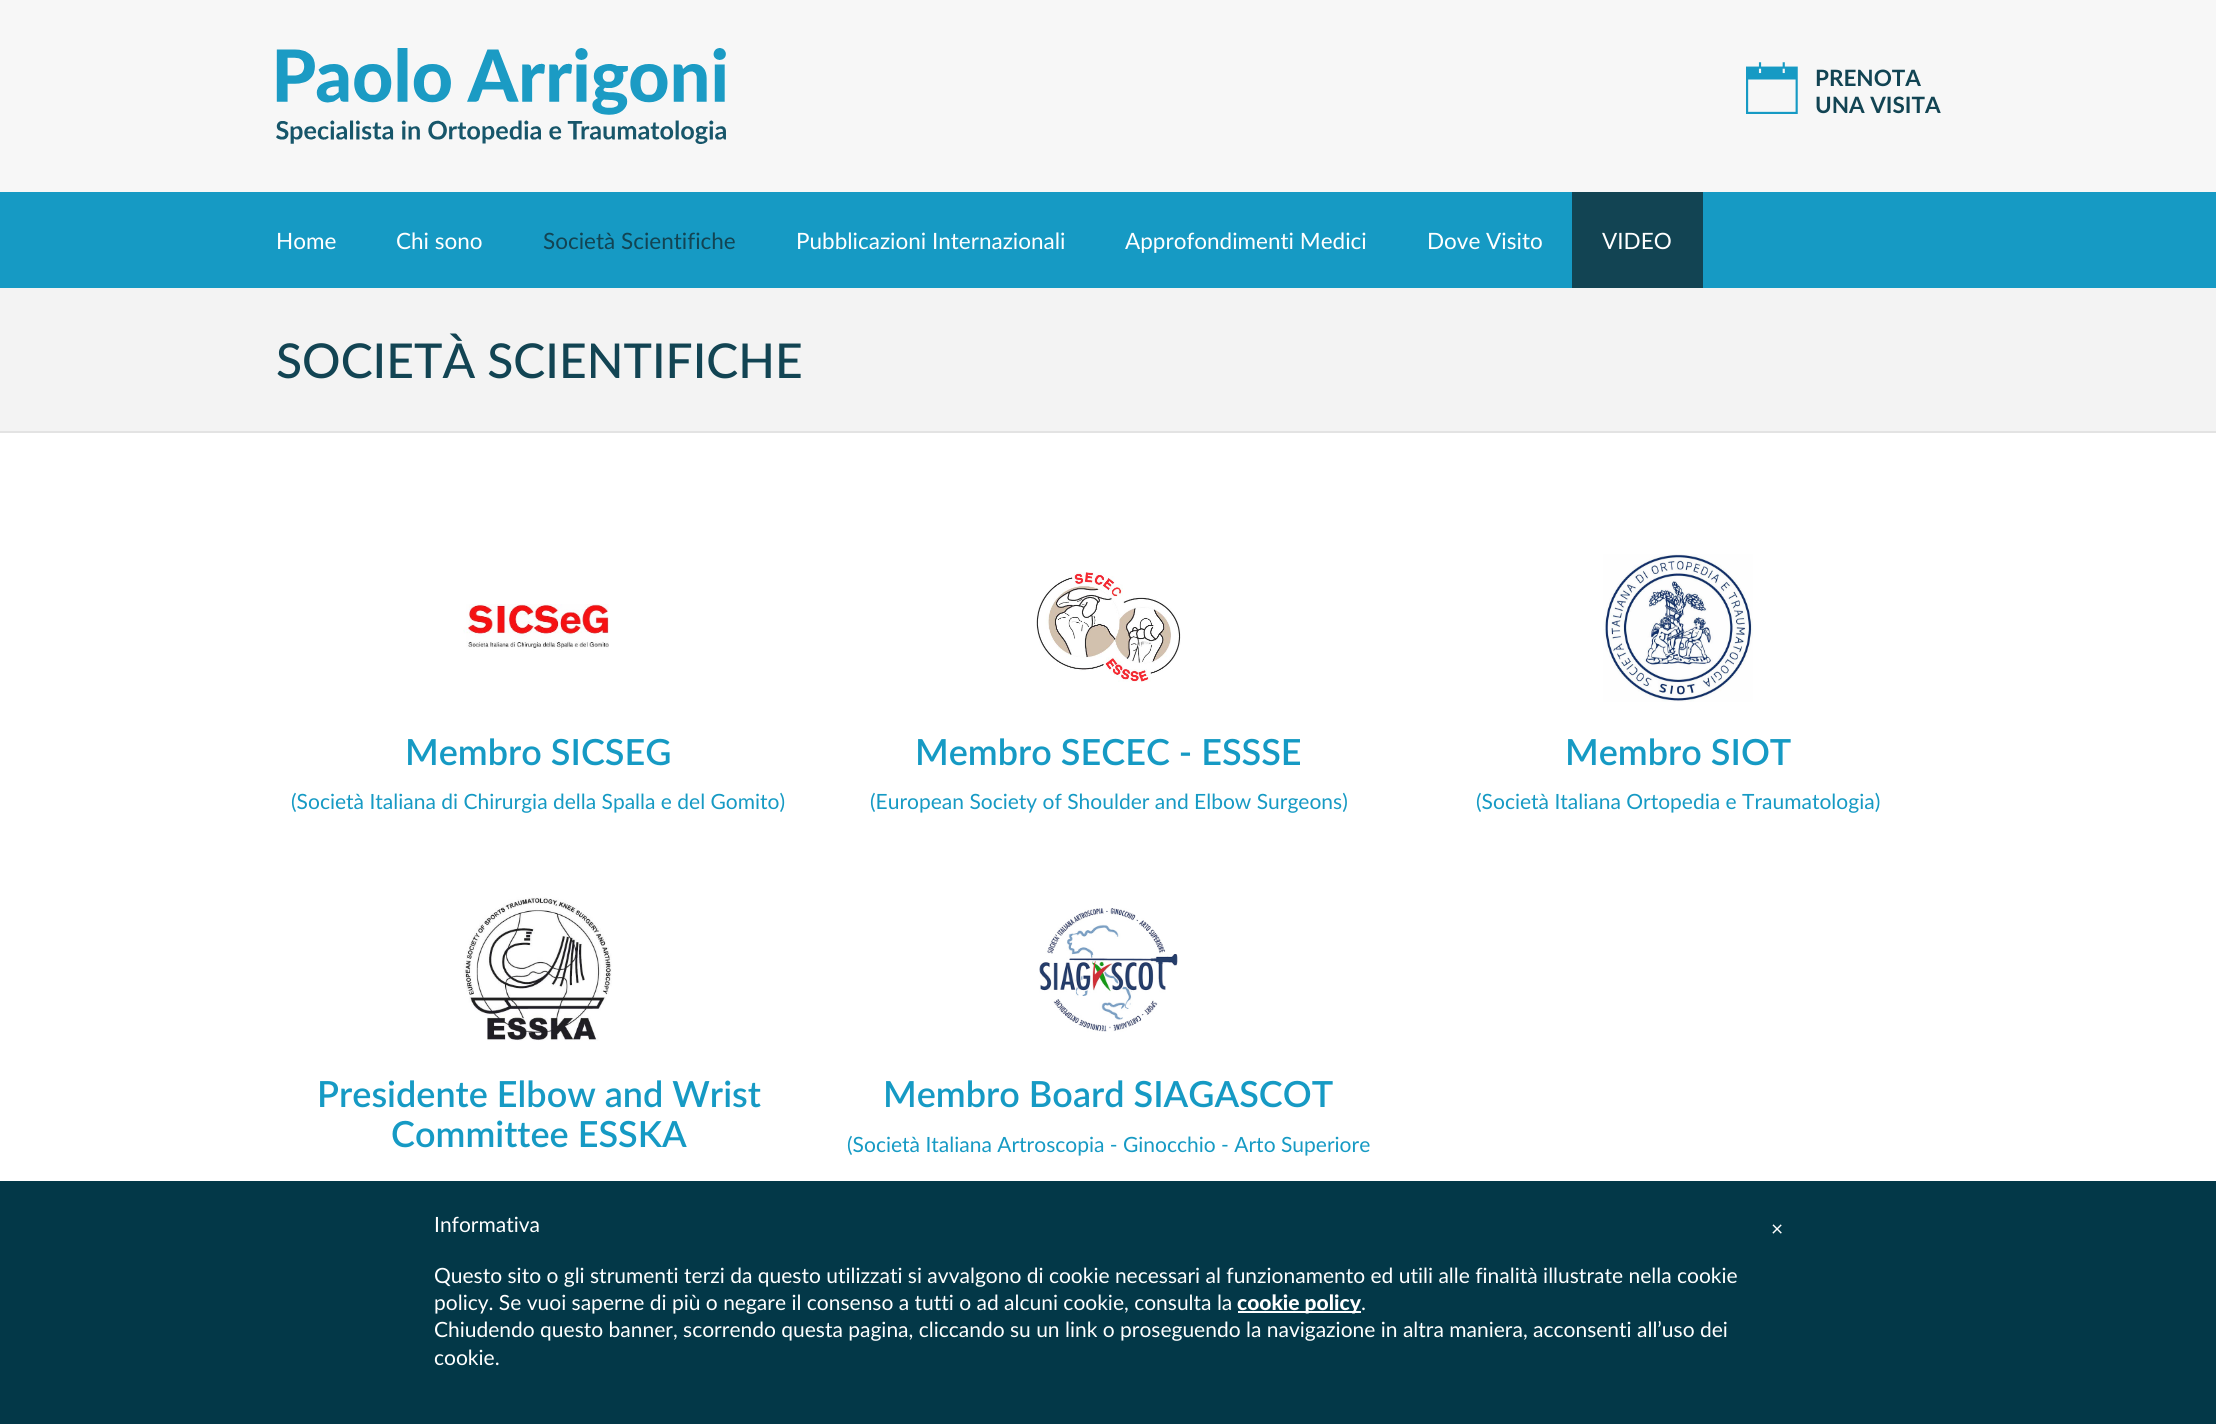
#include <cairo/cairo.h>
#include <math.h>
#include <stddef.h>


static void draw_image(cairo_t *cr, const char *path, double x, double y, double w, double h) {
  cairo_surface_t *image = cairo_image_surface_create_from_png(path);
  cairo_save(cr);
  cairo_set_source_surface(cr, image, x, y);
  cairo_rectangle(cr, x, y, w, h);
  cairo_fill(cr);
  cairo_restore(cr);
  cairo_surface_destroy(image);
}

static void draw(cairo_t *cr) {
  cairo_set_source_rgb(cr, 1, 1, 1);
  cairo_paint(cr);
  cairo_set_source_rgb(cr, 247 / 255.0, 247 / 255.0, 247 / 255.0);
  cairo_rectangle(cr, 0, 0, 2216, 192);
  cairo_fill(cr);
  draw_image(cr, "images/1.png", 276, 48, 450, 96);
  draw_image(cr, "images/2.png", 1746, 62, 52, 52);
  cairo_set_source_rgb(cr, 22 / 255.0, 154 / 255.0, 196 / 255.0);
  cairo_rectangle(cr, 0, 192, 2216, 96);
  cairo_fill(cr);
  cairo_set_source_rgb(cr, 18 / 255.0, 68 / 255.0, 83 / 255.0);
  cairo_rectangle(cr, 1572, 192, 131, 96);
  cairo_fill(cr);
  cairo_set_source_rgb(cr, 243 / 255.0, 243 / 255.0, 243 / 255.0);
  cairo_rectangle(cr, 0, 288, 2216, 143);
  cairo_fill(cr);
  cairo_set_source_rgb(cr, 227 / 255.0, 227 / 255.0, 227 / 255.0);
  cairo_rectangle(cr, 0, 431, 2216, 2);
  cairo_fill(cr);
  draw_image(cr, "images/3.png", 463, 604, 146, 46);
  draw_image(cr, "images/4.png", 1036, 572, 145, 110);
  draw_image(cr, "images/5.png", 1603, 554, 150, 148);
  draw_image(cr, "images/6.png", 463, 897, 149, 144);
  draw_image(cr, "images/7.png", 1039, 908, 139, 124);
  cairo_set_source_rgb(cr, 3 / 255.0, 56 / 255.0, 72 / 255.0);
  cairo_rectangle(cr, 0, 1181, 2216, 243);
  cairo_fill(cr);
  cairo_set_source_rgb(cr, 1, 1, 1);
  cairo_rectangle(cr, 1238, 1311, 123, 2);
  cairo_fill(cr);
  cairo_select_font_face(cr, "Lato", CAIRO_FONT_SLANT_NORMAL, CAIRO_FONT_WEIGHT_BOLD);
  cairo_set_font_size(cr, 22.5);
  cairo_set_source_rgb(cr, 18 / 255.0, 68 / 255.0, 83 / 255.0);
  cairo_move_to(cr, 1815, 86);
  cairo_show_text(cr, "PRENOTA");
  cairo_move_to(cr, 1815, 113);
  cairo_show_text(cr, "UNA VISITA");
  cairo_select_font_face(cr, "Lato", CAIRO_FONT_SLANT_NORMAL, CAIRO_FONT_WEIGHT_NORMAL);
  cairo_set_source_rgb(cr, 1, 1, 1);
  cairo_move_to(cr, 276, 249);
  cairo_show_text(cr, "Home");
  cairo_move_to(cr, 396, 249);
  cairo_show_text(cr, "Chi sono");
  cairo_set_source_rgb(cr, 18 / 255.0, 68 / 255.0, 83 / 255.0);
  cairo_move_to(cr, 543, 249);
  cairo_show_text(cr, "Società Scientifiche");
  cairo_set_source_rgb(cr, 1, 1, 1);
  cairo_move_to(cr, 796, 249);
  cairo_show_text(cr, "Pubblicazioni Internazionali");
  cairo_move_to(cr, 1125, 249);
  cairo_show_text(cr, "Approfondimenti Medici");
  cairo_move_to(cr, 1427, 249);
  cairo_show_text(cr, "Dove Visito");
  cairo_move_to(cr, 1602, 249);
  cairo_show_text(cr, "VIDEO");
  cairo_select_font_face(cr, "Lato Medium", CAIRO_FONT_SLANT_NORMAL, CAIRO_FONT_WEIGHT_NORMAL);
  cairo_set_font_size(cr, 48);
  cairo_set_source_rgb(cr, 18 / 255.0, 68 / 255.0, 83 / 255.0);
  cairo_move_to(cr, 276, 378);
  cairo_show_text(cr, "SOCIETÀ SCIENTIFICHE");
  cairo_select_font_face(cr, "Lato SemiBold", CAIRO_FONT_SLANT_NORMAL, CAIRO_FONT_WEIGHT_NORMAL);
  cairo_set_font_size(cr, 36);
  cairo_set_source_rgb(cr, 22 / 255.0, 154 / 255.0, 196 / 255.0);
  cairo_move_to(cr, 405, 765);
  cairo_show_text(cr, "Membro SICSEG");
  cairo_select_font_face(cr, "Lato", CAIRO_FONT_SLANT_NORMAL, CAIRO_FONT_WEIGHT_NORMAL);
  cairo_set_font_size(cr, 21);
  cairo_move_to(cr, 291, 809);
  cairo_show_text(cr, "(Società Italiana di Chirurgia della Spalla e del Gomito)");
  cairo_select_font_face(cr, "Lato SemiBold", CAIRO_FONT_SLANT_NORMAL, CAIRO_FONT_WEIGHT_NORMAL);
  cairo_set_font_size(cr, 36);
  cairo_move_to(cr, 915, 765);
  cairo_show_text(cr, "Membro SECEC - ESSSE");
  cairo_select_font_face(cr, "Lato", CAIRO_FONT_SLANT_NORMAL, CAIRO_FONT_WEIGHT_NORMAL);
  cairo_set_font_size(cr, 21);
  cairo_move_to(cr, 870, 809);
  cairo_show_text(cr, "(European Society of Shoulder and Elbow Surgeons)");
  cairo_select_font_face(cr, "Lato SemiBold", CAIRO_FONT_SLANT_NORMAL, CAIRO_FONT_WEIGHT_NORMAL);
  cairo_set_font_size(cr, 36);
  cairo_move_to(cr, 1565, 765);
  cairo_show_text(cr, "Membro SIOT");
  cairo_select_font_face(cr, "Lato", CAIRO_FONT_SLANT_NORMAL, CAIRO_FONT_WEIGHT_NORMAL);
  cairo_set_font_size(cr, 21);
  cairo_move_to(cr, 1476, 809);
  cairo_show_text(cr, "(Società Italiana Ortopedia e Traumatologia)");
  cairo_select_font_face(cr, "Lato SemiBold", CAIRO_FONT_SLANT_NORMAL, CAIRO_FONT_WEIGHT_NORMAL);
  cairo_set_font_size(cr, 36);
  cairo_move_to(cr, 317, 1107);
  cairo_show_text(cr, "Presidente Elbow and Wrist");
  cairo_move_to(cr, 391, 1147);
  cairo_show_text(cr, "Committee ESSKA");
  cairo_move_to(cr, 883, 1107);
  cairo_show_text(cr, "Membro Board SIAGASCOT");
  cairo_select_font_face(cr, "Lato", CAIRO_FONT_SLANT_NORMAL, CAIRO_FONT_WEIGHT_NORMAL);
  cairo_set_font_size(cr, 21);
  cairo_move_to(cr, 847, 1152);
  cairo_show_text(cr, "(Società Italiana Artroscopia - Ginocchio - Arto Superiore");
  cairo_set_source_rgb(cr, 1, 1, 1);
  cairo_move_to(cr, 434, 1232);
  cairo_show_text(cr, "Informativa");
  cairo_move_to(cr, 434, 1283);
  cairo_show_text(cr, "Questo sito o gli strumenti terzi da questo utilizzati si avvalgono di cookie necessari al funzionamento ed utili alle finalità illustrate nella cookie");
  cairo_move_to(cr, 434, 1310);
  cairo_show_text(cr, "policy. Se vuoi saperne di più o negare il consenso a tutti o ad alcuni cookie, consulta la");
  cairo_select_font_face(cr, "Lato Black", CAIRO_FONT_SLANT_NORMAL, CAIRO_FONT_WEIGHT_NORMAL);
  cairo_move_to(cr, 1237, 1310);
  cairo_show_text(cr, "cookie policy");
  cairo_select_font_face(cr, "Lato", CAIRO_FONT_SLANT_NORMAL, CAIRO_FONT_WEIGHT_NORMAL);
  cairo_move_to(cr, 1361, 1310);
  cairo_show_text(cr, ".");
  cairo_move_to(cr, 434, 1337);
  cairo_show_text(cr, "Chiudendo questo banner, scorrendo questa pagina, cliccando su un link o proseguendo la navigazione in altra maniera, acconsenti all’uso dei");
  cairo_move_to(cr, 434, 1365);
  cairo_show_text(cr, "cookie.");
  cairo_move_to(cr, 1771, 1236);
  cairo_show_text(cr, "×");
}

int main(void) {
  cairo_surface_t *surface = cairo_image_surface_create(CAIRO_FORMAT_RGB24, 2216, 1424);
  cairo_t *cr = cairo_create(surface);
  cairo_font_options_t *options = cairo_font_options_create();
  cairo_font_options_set_hint_metrics(options, CAIRO_HINT_METRICS_OFF);
  cairo_font_options_set_hint_style(options, CAIRO_HINT_STYLE_NONE);
  cairo_set_font_options(cr, options);
  cairo_set_miter_limit(cr, 4);
  draw(cr);
  cairo_surface_write_to_png(surface, "out.png");
  cairo_font_options_destroy(options);
  cairo_destroy(cr);
  cairo_surface_destroy(surface);
  return 0;
}
